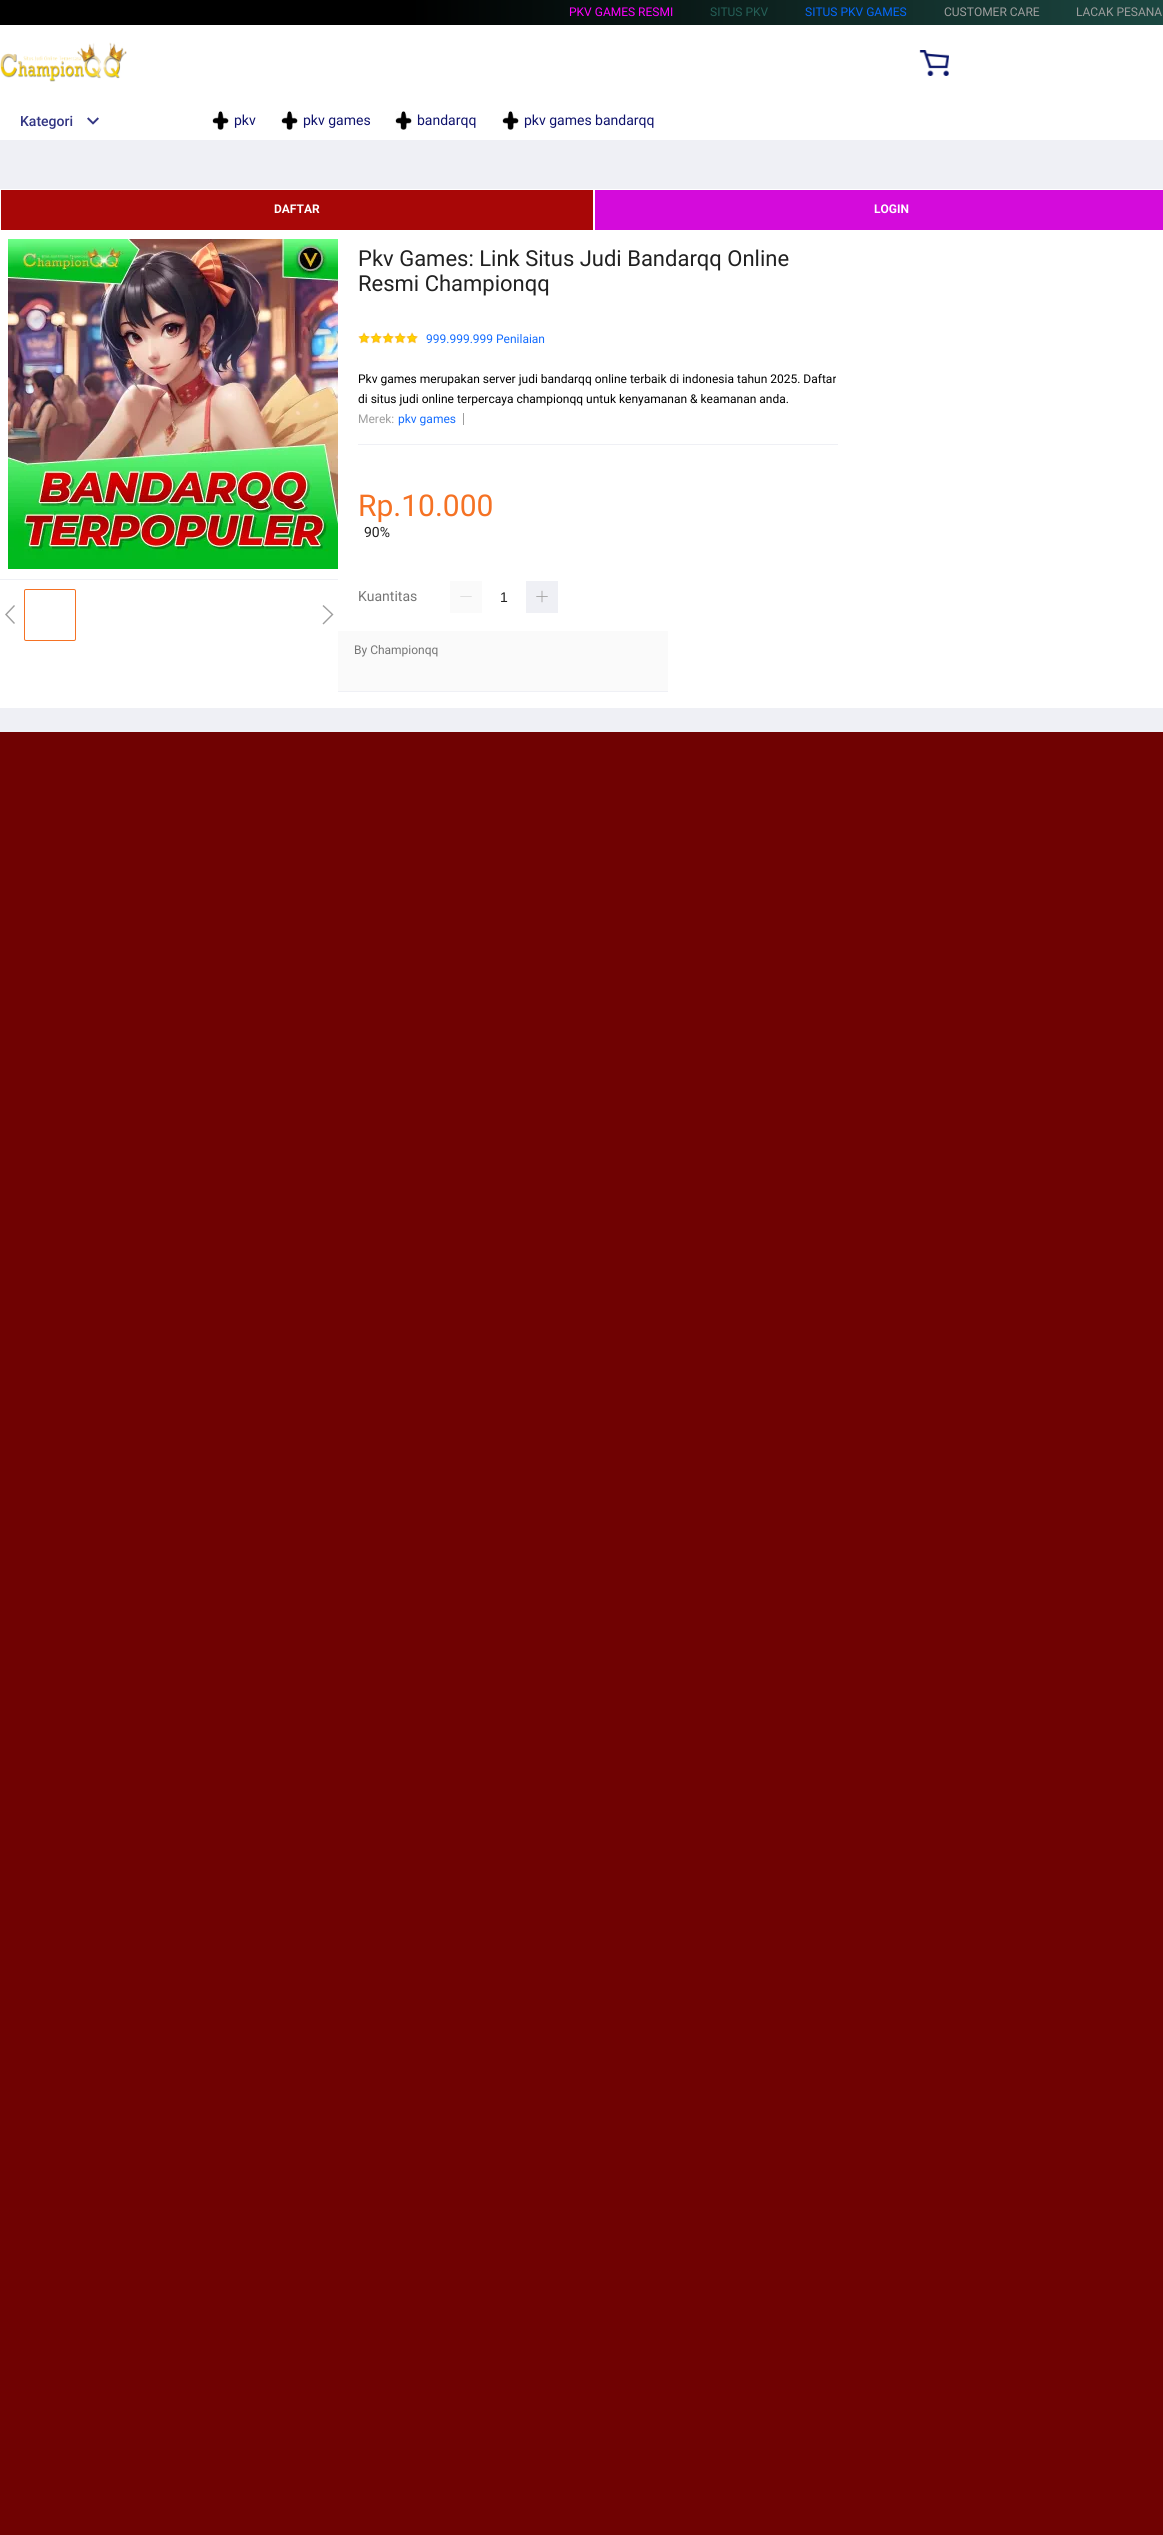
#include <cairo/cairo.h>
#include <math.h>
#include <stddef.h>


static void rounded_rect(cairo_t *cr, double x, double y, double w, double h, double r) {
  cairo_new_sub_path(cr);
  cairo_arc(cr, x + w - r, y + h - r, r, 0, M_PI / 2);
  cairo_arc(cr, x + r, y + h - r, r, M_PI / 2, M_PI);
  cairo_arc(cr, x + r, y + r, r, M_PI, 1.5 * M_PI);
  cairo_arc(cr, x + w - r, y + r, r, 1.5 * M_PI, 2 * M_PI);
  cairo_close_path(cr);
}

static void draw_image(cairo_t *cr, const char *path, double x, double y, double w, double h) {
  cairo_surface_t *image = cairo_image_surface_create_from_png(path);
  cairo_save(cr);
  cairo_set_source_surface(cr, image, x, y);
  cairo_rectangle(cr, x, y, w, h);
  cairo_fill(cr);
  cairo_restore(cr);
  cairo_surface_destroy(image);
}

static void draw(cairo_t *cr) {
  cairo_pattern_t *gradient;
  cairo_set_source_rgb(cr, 112 / 255.0, 2 / 255.0, 2 / 255.0);
  cairo_paint(cr);
  cairo_set_source_rgb(cr, 1, 1, 1);
  cairo_rectangle(cr, 0, 25, 1163, 115);
  cairo_fill(cr);
  gradient = cairo_pattern_create_linear(0, 14, 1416, 11);
  cairo_pattern_add_color_stop_rgba(gradient, 0.29, 0, 0, 0, 1);
  cairo_pattern_add_color_stop_rgba(gradient, 1, 37 / 255.0, 95 / 255.0, 87 / 255.0, 1);
  cairo_set_source(cr, gradient);
  cairo_pattern_destroy(gradient);
  cairo_rectangle(cr, 0, 0, 1163, 25);
  cairo_fill(cr);
  draw_image(cr, "images/1.png", 0, 42, 127, 40);
  draw_image(cr, "images/2.png", 919, 50, 30, 26);
  draw_image(cr, "images/3.png", 87, 117, 12, 8);
  draw_image(cr, "images/4.png", 212, 111, 17, 19);
  draw_image(cr, "images/5.png", 281, 111, 17, 19);
  draw_image(cr, "images/5.png", 395, 111, 17, 19);
  draw_image(cr, "images/5.png", 502, 111, 17, 19);
  cairo_set_source_rgb(cr, 239 / 255.0, 240 / 255.0, 245 / 255.0);
  cairo_rectangle(cr, 0, 140, 1163, 49);
  cairo_fill(cr);
  cairo_set_source_rgb(cr, 168 / 255.0, 7 / 255.0, 7 / 255.0);
  cairo_rectangle(cr, 0.5, 189.5, 593, 41);
  cairo_fill_preserve(cr);
  cairo_set_source_rgb(cr, 1, 1, 1);
  cairo_set_line_width(cr, 1);
  cairo_stroke(cr);
  cairo_set_source_rgb(cr, 212 / 255.0, 11 / 255.0, 219 / 255.0);
  cairo_rectangle(cr, 594.5, 189.5, 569, 41);
  cairo_fill_preserve(cr);
  cairo_set_source_rgb(cr, 1, 1, 1);
  cairo_stroke(cr);
  cairo_set_source_rgb(cr, 239 / 255.0, 240 / 255.0, 245 / 255.0);
  cairo_rectangle(cr, 0, 708, 1163, 24);
  cairo_fill(cr);
  cairo_set_source_rgb(cr, 1, 1, 1);
  cairo_rectangle(cr, 0, 231, 1163, 477);
  cairo_fill(cr);
  cairo_set_source_rgb(cr, 239 / 255.0, 240 / 255.0, 245 / 255.0);
  cairo_rectangle(cr, 0, 579, 338, 1);
  cairo_fill(cr);
  draw_image(cr, "images/6.png", 8, 239, 330, 330);
  cairo_set_source_rgb(cr, 158 / 255.0, 158 / 255.0, 158 / 255.0);
  cairo_new_path(cr);
  cairo_move_to(cr, 15, 623);
  cairo_line_to(cr, 7, 614.5);
  cairo_line_to(cr, 15, 606);
  cairo_line_to(cr, 14, 605);
  cairo_line_to(cr, 5, 614.5);
  cairo_line_to(cr, 14, 624);
  cairo_close_path(cr);
  cairo_fill(cr);
  rounded_rect(cr, 24.5, 589.5, 51, 51, 1.5);
  cairo_set_source_rgb(cr, 245 / 255.0, 114 / 255.0, 36 / 255.0);
  cairo_stroke(cr);
  cairo_set_source_rgb(cr, 158 / 255.0, 158 / 255.0, 158 / 255.0);
  cairo_new_path(cr);
  cairo_move_to(cr, 323.5, 624.5);
  cairo_line_to(cr, 322.5, 623.5);
  cairo_line_to(cr, 331.5, 614.5);
  cairo_line_to(cr, 322.5, 606);
  cairo_line_to(cr, 323.5, 605);
  cairo_line_to(cr, 333.5, 614.5);
  cairo_close_path(cr);
  cairo_fill(cr);
  draw_image(cr, "images/7.png", 358, 332, 12, 12);
  draw_image(cr, "images/7.png", 370, 332, 12, 12);
  draw_image(cr, "images/7.png", 382, 332, 12, 12);
  draw_image(cr, "images/7.png", 394, 332, 12, 12);
  draw_image(cr, "images/7.png", 406, 332, 12, 12);
  cairo_set_source_rgb(cr, 239 / 255.0, 240 / 255.0, 245 / 255.0);
  cairo_rectangle(cr, 358, 444, 480, 1);
  cairo_fill(cr);
  cairo_set_source_rgb(cr, 158 / 255.0, 158 / 255.0, 158 / 255.0);
  cairo_rectangle(cr, 463, 413, 1, 12);
  cairo_fill(cr);
  cairo_set_source_rgb(cr, 250 / 255.0, 250 / 255.0, 250 / 255.0);
  cairo_rectangle(cr, 450, 581, 32, 32);
  cairo_fill(cr);
  draw_image(cr, "images/8.png", 460, 596, 12, 1);
  cairo_set_source_rgb(cr, 239 / 255.0, 240 / 255.0, 245 / 255.0);
  cairo_rectangle(cr, 526, 581, 32, 32);
  cairo_fill(cr);
  draw_image(cr, "images/9.png", 536, 590, 12, 13);
  cairo_set_source_rgb(cr, 250 / 255.0, 250 / 255.0, 250 / 255.0);
  cairo_rectangle(cr, 338, 631, 330, 60);
  cairo_fill(cr);
  cairo_set_source_rgb(cr, 239 / 255.0, 240 / 255.0, 245 / 255.0);
  cairo_rectangle(cr, 338, 691, 330, 1);
  cairo_fill(cr);
  cairo_select_font_face(cr, "Roboto", CAIRO_FONT_SLANT_NORMAL, CAIRO_FONT_WEIGHT_NORMAL);
  cairo_set_font_size(cr, 12);
  cairo_set_source_rgb(cr, 1, 0, 1);
  cairo_move_to(cr, 569, 16);
  cairo_show_text(cr, "PKV GAMES RESMI");
  cairo_set_source_rgb(cr, 37 / 255.0, 95 / 255.0, 87 / 255.0);
  cairo_move_to(cr, 710, 16);
  cairo_show_text(cr, "SITUS PKV");
  cairo_set_source_rgb(cr, 5 / 255.0, 104 / 255.0, 252 / 255.0);
  cairo_move_to(cr, 805, 16);
  cairo_show_text(cr, "SITUS PKV GAMES");
  cairo_set_source_rgb(cr, 158 / 255.0, 158 / 255.0, 158 / 255.0);
  cairo_move_to(cr, 944, 16);
  cairo_show_text(cr, "CUSTOMER CARE");
  cairo_move_to(cr, 1076, 16);
  cairo_show_text(cr, "LACAK PESANA");
  cairo_select_font_face(cr, "Roboto Medium", CAIRO_FONT_SLANT_NORMAL, CAIRO_FONT_WEIGHT_NORMAL);
  cairo_set_font_size(cr, 14);
  cairo_set_source_rgb(cr, 51 / 255.0, 54 / 255.0, 131 / 255.0);
  cairo_move_to(cr, 20, 126);
  cairo_show_text(cr, "Kategori");
  cairo_select_font_face(cr, "Roboto", CAIRO_FONT_SLANT_NORMAL, CAIRO_FONT_WEIGHT_NORMAL);
  cairo_set_source_rgb(cr, 15 / 255.0, 19 / 255.0, 109 / 255.0);
  cairo_move_to(cr, 234, 125);
  cairo_show_text(cr, "pkv");
  cairo_move_to(cr, 303, 125);
  cairo_show_text(cr, "pkv games");
  cairo_move_to(cr, 417, 125);
  cairo_show_text(cr, "bandarqq");
  cairo_move_to(cr, 524, 125);
  cairo_show_text(cr, "pkv games bandarqq");
  cairo_select_font_face(cr, "Roboto", CAIRO_FONT_SLANT_NORMAL, CAIRO_FONT_WEIGHT_BOLD);
  cairo_set_font_size(cr, 12);
  cairo_set_source_rgb(cr, 1, 1, 1);
  cairo_move_to(cr, 274, 213);
  cairo_show_text(cr, "DAFTAR");
  cairo_move_to(cr, 874, 213);
  cairo_show_text(cr, "LOGIN");
  cairo_select_font_face(cr, "Roboto", CAIRO_FONT_SLANT_NORMAL, CAIRO_FONT_WEIGHT_NORMAL);
  cairo_set_font_size(cr, 22);
  cairo_set_source_rgb(cr, 33 / 255.0, 33 / 255.0, 33 / 255.0);
  cairo_move_to(cr, 358, 266);
  cairo_show_text(cr, "Pkv Games: Link Situs Judi Bandarqq Online");
  cairo_move_to(cr, 358, 291);
  cairo_show_text(cr, "Resmi Championqq");
  cairo_set_font_size(cr, 12);
  cairo_set_source_rgb(cr, 19 / 255.0, 108 / 255.0, 1);
  cairo_move_to(cr, 426, 343);
  cairo_show_text(cr, "999.999.999 Penilaian");
  cairo_set_source_rgb(cr, 0, 0, 0);
  cairo_move_to(cr, 358, 383);
  cairo_show_text(cr, "Pkv games merupakan server judi bandarqq online terbaik di indonesia tahun 2025. Daftar");
  cairo_move_to(cr, 358, 403);
  cairo_show_text(cr, "di situs judi online terpercaya championqq untuk kenyamanan & keamanan anda.");
  cairo_set_source_rgb(cr, 158 / 255.0, 158 / 255.0, 158 / 255.0);
  cairo_move_to(cr, 358, 423);
  cairo_show_text(cr, "Merek:");
  cairo_set_source_rgb(cr, 19 / 255.0, 108 / 255.0, 1);
  cairo_move_to(cr, 398, 423);
  cairo_show_text(cr, "pkv games");
  cairo_set_font_size(cr, 30);
  cairo_set_source_rgb(cr, 245 / 255.0, 114 / 255.0, 36 / 255.0);
  cairo_move_to(cr, 358, 516);
  cairo_show_text(cr, "Rp.10.000");
  cairo_set_font_size(cr, 14);
  cairo_set_source_rgb(cr, 33 / 255.0, 33 / 255.0, 33 / 255.0);
  cairo_move_to(cr, 364, 537);
  cairo_show_text(cr, "90%");
  cairo_set_source_rgb(cr, 117 / 255.0, 117 / 255.0, 117 / 255.0);
  cairo_move_to(cr, 358, 601);
  cairo_show_text(cr, "Kuantitas");
  cairo_select_font_face(cr, "Liberation Sans", CAIRO_FONT_SLANT_NORMAL, CAIRO_FONT_WEIGHT_NORMAL);
  cairo_set_source_rgb(cr, 33 / 255.0, 33 / 255.0, 33 / 255.0);
  cairo_move_to(cr, 500, 602);
  cairo_show_text(cr, "1");
  cairo_select_font_face(cr, "Roboto", CAIRO_FONT_SLANT_NORMAL, CAIRO_FONT_WEIGHT_NORMAL);
  cairo_set_font_size(cr, 12);
  cairo_set_source_rgb(cr, 117 / 255.0, 117 / 255.0, 117 / 255.0);
  cairo_move_to(cr, 354, 654);
  cairo_show_text(cr, "By Championqq");
}

int main(void) {
  cairo_surface_t *surface = cairo_image_surface_create(CAIRO_FORMAT_RGB24, 1163, 2535);
  cairo_t *cr = cairo_create(surface);
  cairo_font_options_t *options = cairo_font_options_create();
  cairo_font_options_set_hint_metrics(options, CAIRO_HINT_METRICS_OFF);
  cairo_font_options_set_hint_style(options, CAIRO_HINT_STYLE_NONE);
  cairo_set_font_options(cr, options);
  cairo_set_miter_limit(cr, 4);
  draw(cr);
  cairo_surface_write_to_png(surface, "out.png");
  cairo_font_options_destroy(options);
  cairo_destroy(cr);
  cairo_surface_destroy(surface);
  return 0;
}
